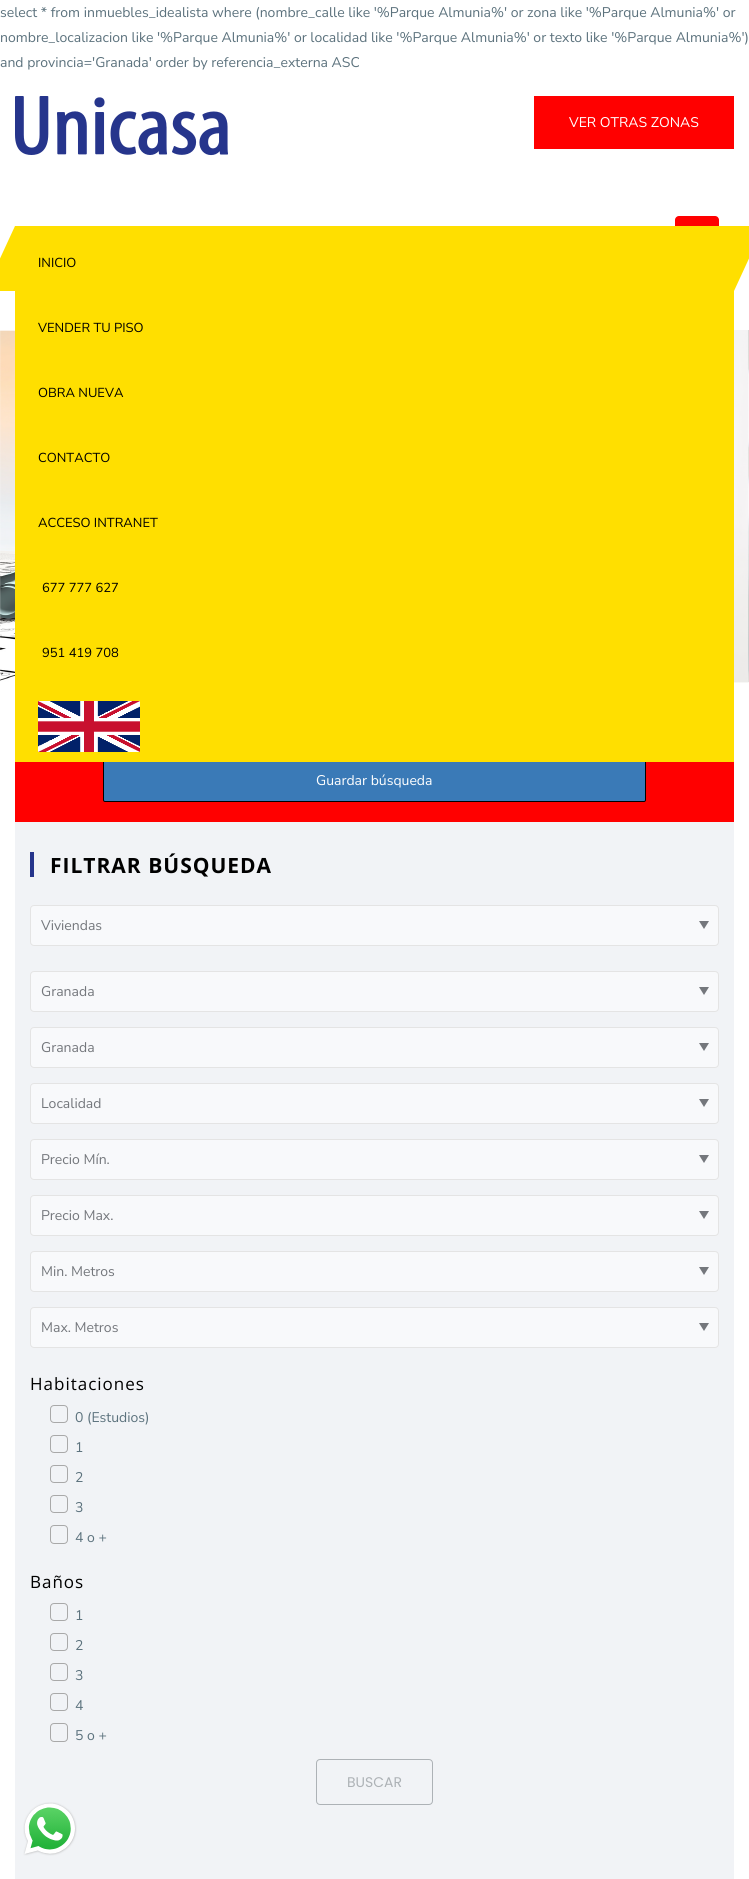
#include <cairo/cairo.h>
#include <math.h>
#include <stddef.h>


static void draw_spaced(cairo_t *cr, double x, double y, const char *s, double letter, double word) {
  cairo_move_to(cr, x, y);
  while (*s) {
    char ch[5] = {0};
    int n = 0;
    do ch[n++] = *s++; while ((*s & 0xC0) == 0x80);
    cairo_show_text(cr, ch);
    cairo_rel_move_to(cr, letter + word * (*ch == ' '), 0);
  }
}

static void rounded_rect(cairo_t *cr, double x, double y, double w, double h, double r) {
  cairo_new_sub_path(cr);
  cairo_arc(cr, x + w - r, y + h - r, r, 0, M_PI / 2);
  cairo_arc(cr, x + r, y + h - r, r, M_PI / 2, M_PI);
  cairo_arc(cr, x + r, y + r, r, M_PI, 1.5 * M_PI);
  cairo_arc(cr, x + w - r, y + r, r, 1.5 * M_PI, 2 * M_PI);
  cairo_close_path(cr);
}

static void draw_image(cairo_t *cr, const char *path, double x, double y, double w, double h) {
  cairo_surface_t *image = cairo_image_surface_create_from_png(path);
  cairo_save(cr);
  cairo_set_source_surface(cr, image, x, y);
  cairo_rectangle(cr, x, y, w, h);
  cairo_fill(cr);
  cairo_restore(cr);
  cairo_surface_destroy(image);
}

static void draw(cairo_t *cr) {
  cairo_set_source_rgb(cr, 1, 1, 1);
  cairo_paint(cr);
  draw_image(cr, "images/1.png", 15, 96, 213, 60);
  cairo_set_source_rgb(cr, 1, 0, 0);
  cairo_rectangle(cr, 534, 96, 200, 53);
  cairo_fill(cr);
  cairo_set_source_rgb(cr, 1, 223 / 255.0, 0);
  cairo_new_path(cr);
  cairo_move_to(cr, 724, 226);
  cairo_line_to(cr, 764, 226);
  cairo_line_to(cr, 734, 291);
  cairo_line_to(cr, 694, 291);
  cairo_close_path(cr);
  cairo_fill(cr);
  cairo_set_source_rgb(cr, 1, 0, 0);
  rounded_rect(cr, 675, 216, 44, 34, 4);
  cairo_fill(cr);
  cairo_set_source_rgb(cr, 1, 223 / 255.0, 0);
  cairo_new_path(cr);
  cairo_move_to(cr, 15, 226);
  cairo_line_to(cr, 55, 226);
  cairo_line_to(cr, 25, 291);
  cairo_line_to(cr, -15, 291);
  cairo_close_path(cr);
  cairo_fill(cr);
  cairo_set_source_rgb(cr, 1, 0, 0);
  cairo_rectangle(cr, 15, 762, 719, 60);
  cairo_fill(cr);
  cairo_set_source_rgb(cr, 58 / 255.0, 122 / 255.0, 183 / 255.0);
  rounded_rect(cr, 103.5, 759.5, 542, 42, 1.5);
  cairo_fill_preserve(cr);
  cairo_set_source_rgb(cr, 0, 0, 0);
  cairo_set_line_width(cr, 1);
  cairo_stroke(cr);
  cairo_set_source_rgb(cr, 1, 223 / 255.0, 0);
  cairo_rectangle(cr, 15, 226, 719, 536);
  cairo_fill(cr);
  draw_image(cr, "images/2.png", 38, 701, 102, 51);
  draw_image(cr, "images/3.png", 0, 330, 15, 354);
  draw_image(cr, "images/4.png", 734, 330, 15, 353);
  cairo_set_source_rgb(cr, 241 / 255.0, 243 / 255.0, 246 / 255.0);
  cairo_rectangle(cr, 15, 822, 719, 1057);
  cairo_fill(cr);
  cairo_set_source_rgb(cr, 38 / 255.0, 53 / 255.0, 140 / 255.0);
  cairo_rectangle(cr, 30, 852, 4, 25);
  cairo_fill(cr);
  cairo_set_source_rgb(cr, 248 / 255.0, 249 / 255.0, 251 / 255.0);
  rounded_rect(cr, 30.5, 905.5, 688, 40, 3.5);
  cairo_fill_preserve(cr);
  cairo_set_source_rgb(cr, 228 / 255.0, 228 / 255.0, 228 / 255.0);
  cairo_stroke(cr);
  cairo_set_source_rgb(cr, 116 / 255.0, 119 / 255.0, 124 / 255.0);
  cairo_new_path(cr);
  cairo_move_to(cr, 699, 921);
  cairo_line_to(cr, 709, 921);
  cairo_line_to(cr, 704, 929);
  cairo_close_path(cr);
  cairo_fill(cr);
  cairo_set_source_rgb(cr, 248 / 255.0, 249 / 255.0, 251 / 255.0);
  rounded_rect(cr, 30.5, 971.5, 688, 40, 3.5);
  cairo_fill_preserve(cr);
  cairo_set_source_rgb(cr, 228 / 255.0, 228 / 255.0, 228 / 255.0);
  cairo_stroke(cr);
  cairo_set_source_rgb(cr, 116 / 255.0, 119 / 255.0, 124 / 255.0);
  cairo_new_path(cr);
  cairo_move_to(cr, 699, 987);
  cairo_line_to(cr, 709, 987);
  cairo_line_to(cr, 704, 995);
  cairo_close_path(cr);
  cairo_fill(cr);
  cairo_set_source_rgb(cr, 248 / 255.0, 249 / 255.0, 251 / 255.0);
  rounded_rect(cr, 30.5, 1027.5, 688, 40, 3.5);
  cairo_fill_preserve(cr);
  cairo_set_source_rgb(cr, 228 / 255.0, 228 / 255.0, 228 / 255.0);
  cairo_stroke(cr);
  cairo_set_source_rgb(cr, 116 / 255.0, 119 / 255.0, 124 / 255.0);
  cairo_new_path(cr);
  cairo_move_to(cr, 699, 1043);
  cairo_line_to(cr, 709, 1043);
  cairo_line_to(cr, 704, 1051);
  cairo_close_path(cr);
  cairo_fill(cr);
  cairo_set_source_rgb(cr, 248 / 255.0, 249 / 255.0, 251 / 255.0);
  rounded_rect(cr, 30.5, 1083.5, 688, 40, 3.5);
  cairo_fill_preserve(cr);
  cairo_set_source_rgb(cr, 228 / 255.0, 228 / 255.0, 228 / 255.0);
  cairo_stroke(cr);
  cairo_set_source_rgb(cr, 116 / 255.0, 119 / 255.0, 124 / 255.0);
  cairo_new_path(cr);
  cairo_move_to(cr, 699, 1099);
  cairo_line_to(cr, 709, 1099);
  cairo_line_to(cr, 704, 1107);
  cairo_close_path(cr);
  cairo_fill(cr);
  cairo_set_source_rgb(cr, 248 / 255.0, 249 / 255.0, 251 / 255.0);
  rounded_rect(cr, 30.5, 1139.5, 688, 40, 3.5);
  cairo_fill_preserve(cr);
  cairo_set_source_rgb(cr, 228 / 255.0, 228 / 255.0, 228 / 255.0);
  cairo_stroke(cr);
  cairo_set_source_rgb(cr, 116 / 255.0, 119 / 255.0, 124 / 255.0);
  cairo_new_path(cr);
  cairo_move_to(cr, 699, 1155);
  cairo_line_to(cr, 709, 1155);
  cairo_line_to(cr, 704, 1163);
  cairo_close_path(cr);
  cairo_fill(cr);
  cairo_set_source_rgb(cr, 248 / 255.0, 249 / 255.0, 251 / 255.0);
  rounded_rect(cr, 30.5, 1195.5, 688, 40, 3.5);
  cairo_fill_preserve(cr);
  cairo_set_source_rgb(cr, 228 / 255.0, 228 / 255.0, 228 / 255.0);
  cairo_stroke(cr);
  cairo_set_source_rgb(cr, 116 / 255.0, 119 / 255.0, 124 / 255.0);
  cairo_new_path(cr);
  cairo_move_to(cr, 699, 1211);
  cairo_line_to(cr, 709, 1211);
  cairo_line_to(cr, 704, 1219);
  cairo_close_path(cr);
  cairo_fill(cr);
  cairo_set_source_rgb(cr, 248 / 255.0, 249 / 255.0, 251 / 255.0);
  rounded_rect(cr, 30.5, 1251.5, 688, 40, 3.5);
  cairo_fill_preserve(cr);
  cairo_set_source_rgb(cr, 228 / 255.0, 228 / 255.0, 228 / 255.0);
  cairo_stroke(cr);
  cairo_set_source_rgb(cr, 116 / 255.0, 119 / 255.0, 124 / 255.0);
  cairo_new_path(cr);
  cairo_move_to(cr, 699, 1267);
  cairo_line_to(cr, 709, 1267);
  cairo_line_to(cr, 704, 1275);
  cairo_close_path(cr);
  cairo_fill(cr);
  cairo_set_source_rgb(cr, 248 / 255.0, 249 / 255.0, 251 / 255.0);
  rounded_rect(cr, 30.5, 1307.5, 688, 40, 3.5);
  cairo_fill_preserve(cr);
  cairo_set_source_rgb(cr, 228 / 255.0, 228 / 255.0, 228 / 255.0);
  cairo_stroke(cr);
  cairo_set_source_rgb(cr, 116 / 255.0, 119 / 255.0, 124 / 255.0);
  cairo_new_path(cr);
  cairo_move_to(cr, 699, 1323);
  cairo_line_to(cr, 709, 1323);
  cairo_line_to(cr, 704, 1331);
  cairo_close_path(cr);
  cairo_fill(cr);
  rounded_rect(cr, 50.5, 1405.5, 17, 17, 3.5);
  cairo_set_source_rgb(cr, 169 / 255.0, 169 / 255.0, 169 / 255.0);
  cairo_stroke(cr);
  rounded_rect(cr, 50.5, 1435.5, 17, 17, 3.5);
  cairo_stroke(cr);
  rounded_rect(cr, 50.5, 1465.5, 17, 17, 3.5);
  cairo_stroke(cr);
  rounded_rect(cr, 50.5, 1495.5, 17, 17, 3.5);
  cairo_stroke(cr);
  rounded_rect(cr, 50.5, 1525.5, 17, 18, 3.5);
  cairo_stroke(cr);
  rounded_rect(cr, 50.5, 1603.5, 17, 17, 3.5);
  cairo_stroke(cr);
  rounded_rect(cr, 50.5, 1633.5, 17, 17, 3.5);
  cairo_stroke(cr);
  rounded_rect(cr, 50.5, 1663.5, 17, 17, 3.5);
  cairo_stroke(cr);
  rounded_rect(cr, 50.5, 1693.5, 17, 17, 3.5);
  cairo_stroke(cr);
  rounded_rect(cr, 50.5, 1723.5, 17, 18, 3.5);
  cairo_stroke(cr);
  rounded_rect(cr, 316.5, 1759.5, 116, 45, 3.5);
  cairo_set_source_rgb(cr, 173 / 255.0, 178 / 255.0, 182 / 255.0);
  cairo_stroke(cr);
  draw_image(cr, "images/5.png", 23, 1802, 54, 54);
  cairo_select_font_face(cr, "Nunito Sans", CAIRO_FONT_SLANT_NORMAL, CAIRO_FONT_WEIGHT_NORMAL);
  cairo_set_font_size(cr, 14);
  cairo_set_source_rgb(cr, 92 / 255.0, 114 / 255.0, 125 / 255.0);
  cairo_move_to(cr, 0, 17);
  cairo_show_text(cr, "select * from inmuebles_idealista where (nombre_calle like '%Parque Almunia%' or zona like '%Parque Almunia%' or");
  cairo_move_to(cr, 0, 42);
  cairo_show_text(cr, "nombre_localizacion like '%Parque Almunia%' or localidad like '%Parque Almunia%' or texto like '%Parque Almunia%')");
  cairo_move_to(cr, 0, 67);
  cairo_show_text(cr, "and provincia='Granada' order by referencia_externa ASC");
  cairo_set_source_rgb(cr, 1, 1, 1);
  cairo_move_to(cr, 569, 127);
  cairo_show_text(cr, "VER OTRAS ZONAS");
  cairo_set_font_size(cr, 13);
  cairo_set_source_rgb(cr, 0, 0, 0);
  cairo_move_to(cr, 38, 267);
  cairo_show_text(cr, "INICIO");
  cairo_move_to(cr, 38, 332);
  cairo_show_text(cr, "VENDER TU PISO");
  cairo_move_to(cr, 38, 397);
  cairo_show_text(cr, "OBRA NUEVA");
  cairo_move_to(cr, 38, 462);
  cairo_show_text(cr, "CONTACTO");
  cairo_move_to(cr, 38, 527);
  cairo_show_text(cr, "ACCESO INTRANET");
  cairo_move_to(cr, 42, 592);
  cairo_show_text(cr, "677 777 627");
  cairo_move_to(cr, 42, 657);
  cairo_show_text(cr, "951 419 708");
  cairo_set_font_size(cr, 14);
  cairo_set_source_rgb(cr, 1, 1, 1);
  cairo_move_to(cr, 316, 785);
  cairo_show_text(cr, "Guardar búsqueda");
  cairo_select_font_face(cr, "Open Sans", CAIRO_FONT_SLANT_NORMAL, CAIRO_FONT_WEIGHT_BOLD);
  cairo_set_font_size(cr, 21);
  cairo_set_source_rgb(cr, 0, 0, 0);
  draw_spaced(cr, 50, 873, "FILTRAR BÚSQUEDA", 1, 0);
  cairo_select_font_face(cr, "Nunito Sans", CAIRO_FONT_SLANT_NORMAL, CAIRO_FONT_WEIGHT_NORMAL);
  cairo_set_font_size(cr, 14);
  cairo_set_source_rgb(cr, 116 / 255.0, 119 / 255.0, 124 / 255.0);
  cairo_move_to(cr, 41, 930);
  cairo_show_text(cr, "Viviendas");
  cairo_move_to(cr, 41, 996);
  cairo_show_text(cr, "Granada");
  cairo_move_to(cr, 41, 1052);
  cairo_show_text(cr, "Granada");
  cairo_move_to(cr, 41, 1108);
  cairo_show_text(cr, "Localidad");
  cairo_move_to(cr, 41, 1164);
  cairo_show_text(cr, "Precio Mín.");
  cairo_move_to(cr, 41, 1220);
  cairo_show_text(cr, "Precio Max.");
  cairo_move_to(cr, 41, 1276);
  cairo_show_text(cr, "Min. Metros");
  cairo_move_to(cr, 41, 1332);
  cairo_show_text(cr, "Max. Metros");
  cairo_select_font_face(cr, "Open Sans", CAIRO_FONT_SLANT_NORMAL, CAIRO_FONT_WEIGHT_NORMAL);
  cairo_set_font_size(cr, 17);
  cairo_set_source_rgb(cr, 0, 0, 0);
  draw_spaced(cr, 30, 1390, "Habitaciones", 1, 0);
  cairo_select_font_face(cr, "Nunito Sans", CAIRO_FONT_SLANT_NORMAL, CAIRO_FONT_WEIGHT_NORMAL);
  cairo_set_font_size(cr, 14);
  cairo_set_source_rgb(cr, 92 / 255.0, 114 / 255.0, 125 / 255.0);
  cairo_move_to(cr, 75, 1422);
  cairo_show_text(cr, "0 (Estudios)");
  cairo_move_to(cr, 75, 1452);
  cairo_show_text(cr, "1");
  cairo_move_to(cr, 75, 1482);
  cairo_show_text(cr, "2");
  cairo_move_to(cr, 75, 1512);
  cairo_show_text(cr, "3");
  cairo_move_to(cr, 75, 1542);
  cairo_show_text(cr, "4 o +");
  cairo_select_font_face(cr, "Open Sans", CAIRO_FONT_SLANT_NORMAL, CAIRO_FONT_WEIGHT_NORMAL);
  cairo_set_font_size(cr, 17);
  cairo_set_source_rgb(cr, 0, 0, 0);
  draw_spaced(cr, 30, 1588, "Baños", 1, 0);
  cairo_select_font_face(cr, "Nunito Sans", CAIRO_FONT_SLANT_NORMAL, CAIRO_FONT_WEIGHT_NORMAL);
  cairo_set_font_size(cr, 14);
  cairo_set_source_rgb(cr, 92 / 255.0, 114 / 255.0, 125 / 255.0);
  cairo_move_to(cr, 75, 1620);
  cairo_show_text(cr, "1");
  cairo_move_to(cr, 75, 1650);
  cairo_show_text(cr, "2");
  cairo_move_to(cr, 75, 1680);
  cairo_show_text(cr, "3");
  cairo_move_to(cr, 75, 1710);
  cairo_show_text(cr, "4");
  cairo_move_to(cr, 75, 1740);
  cairo_show_text(cr, "5 o +");
  cairo_select_font_face(cr, "Poppins", CAIRO_FONT_SLANT_NORMAL, CAIRO_FONT_WEIGHT_NORMAL);
  cairo_set_source_rgb(cr, 173 / 255.0, 178 / 255.0, 182 / 255.0);
  cairo_move_to(cr, 347, 1787);
  cairo_show_text(cr, "BUSCAR");
}

int main(void) {
  cairo_surface_t *surface = cairo_image_surface_create(CAIRO_FORMAT_RGB24, 749, 1879);
  cairo_t *cr = cairo_create(surface);
  cairo_font_options_t *options = cairo_font_options_create();
  cairo_font_options_set_hint_metrics(options, CAIRO_HINT_METRICS_OFF);
  cairo_font_options_set_hint_style(options, CAIRO_HINT_STYLE_NONE);
  cairo_set_font_options(cr, options);
  cairo_set_miter_limit(cr, 4);
  draw(cr);
  cairo_surface_write_to_png(surface, "out.png");
  cairo_font_options_destroy(options);
  cairo_destroy(cr);
  cairo_surface_destroy(surface);
  return 0;
}
